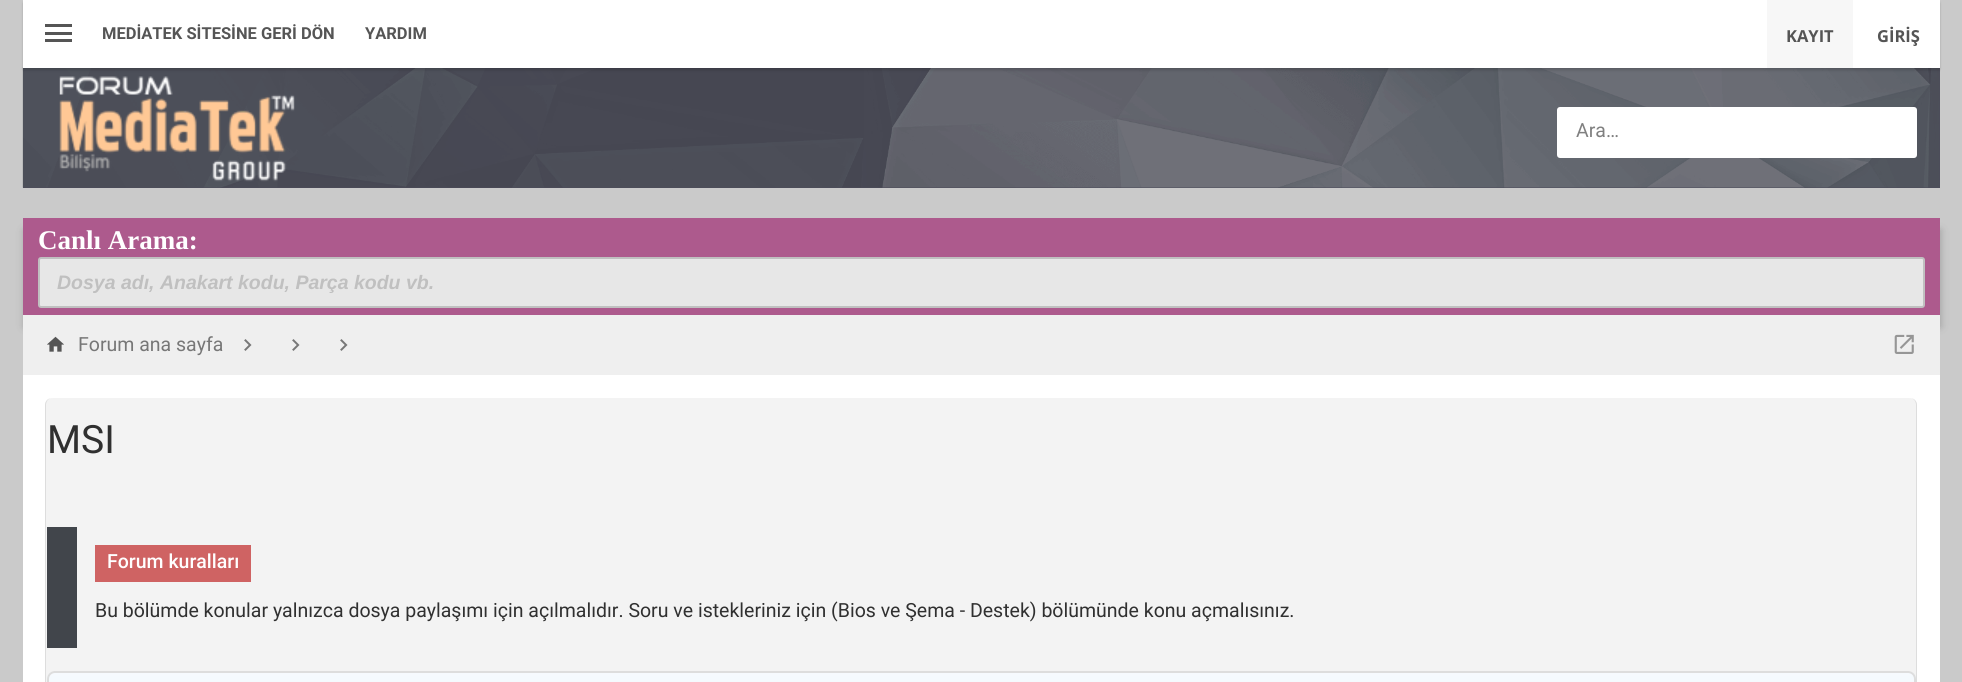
#include <cairo/cairo.h>
#include <math.h>
#include <stddef.h>


static void rounded_rect(cairo_t *cr, double x, double y, double w, double h, double r) {
  cairo_new_sub_path(cr);
  cairo_arc(cr, x + w - r, y + h - r, r, 0, M_PI / 2);
  cairo_arc(cr, x + r, y + h - r, r, M_PI / 2, M_PI);
  cairo_arc(cr, x + r, y + r, r, M_PI, 1.5 * M_PI);
  cairo_arc(cr, x + w - r, y + r, r, 1.5 * M_PI, 2 * M_PI);
  cairo_close_path(cr);
}

static void draw_shadow(cairo_t *cr, double x, double y, double w, double h, double r, double blur, double alpha) {
  cairo_push_group_with_content(cr, CAIRO_CONTENT_ALPHA);
  cairo_set_operator(cr, CAIRO_OPERATOR_SOURCE);
  for (int i = 15; i >= -15 && fmin(w, h) + blur * i / 3 > 0; i -= 2) {
    double e = blur * i / 6;
    cairo_set_source_rgba(cr, 0, 0, 0, alpha * erfc((i - 1) / 8.5) / 2);
    rounded_rect(cr, x - e, y - e, w + 2 * e, h + 2 * e, fmax(0, fmin(r + e + blur * .6, fmin(w, h) / 2 + e)));
    cairo_fill(cr);
  }
  cairo_pattern_t *soft = cairo_pop_group(cr);
  cairo_mask(cr, soft);
  cairo_pattern_destroy(soft);
}

static void draw_image(cairo_t *cr, const char *path, double x, double y, double w, double h) {
  cairo_surface_t *image = cairo_image_surface_create_from_png(path);
  cairo_save(cr);
  cairo_set_source_surface(cr, image, x, y);
  cairo_rectangle(cr, x, y, w, h);
  cairo_fill(cr);
  cairo_restore(cr);
  cairo_surface_destroy(image);
}

static void draw(cairo_t *cr) {
  cairo_pattern_t *gradient;
  cairo_set_source_rgb(cr, 202 / 255.0, 202 / 255.0, 202 / 255.0);
  cairo_paint(cr);
  cairo_set_source_rgb(cr, 77 / 255.0, 77 / 255.0, 92 / 255.0);
  cairo_rectangle(cr, 23, 68, 1917, 120);
  cairo_fill(cr);
  draw_image(cr, "images/1.png", 22, 67, 1918, 121);
  cairo_set_source_rgb(cr, 0, 0, 0);
  draw_shadow(cr, 23, 3, 1917, 68, 0, 1, 0.08);
  draw_shadow(cr, 23, 2, 1917, 67, 0, 1, 0.1);
  cairo_set_source_rgb(cr, 1, 1, 1);
  cairo_rectangle(cr, 23, 0, 1917, 68);
  cairo_fill(cr);
  cairo_set_source_rgb(cr, 85 / 255.0, 85 / 255.0, 85 / 255.0);
  cairo_rectangle(cr, 45, 24, 27, 3);
  cairo_fill(cr);
  cairo_rectangle(cr, 45, 32, 27, 3);
  cairo_fill(cr);
  cairo_rectangle(cr, 45, 39, 27, 3);
  cairo_fill(cr);
  cairo_set_source_rgb(cr, 247 / 255.0, 247 / 255.0, 247 / 255.0);
  cairo_rectangle(cr, 1767, 0, 86, 68);
  cairo_fill(cr);
  draw_image(cr, "images/2.png", 59, 76, 236, 106);
  cairo_set_source_rgb(cr, 1, 1, 1);
  rounded_rect(cr, 1557, 107, 360, 51, 3);
  cairo_fill(cr);
  cairo_set_source_rgb(cr, 0, 0, 0);
  draw_shadow(cr, 24, 230, 1917, 97, 0, 4, 0.2);
  cairo_set_source_rgb(cr, 173 / 255.0, 90 / 255.0, 141 / 255.0);
  cairo_rectangle(cr, 23, 218, 1917, 97);
  cairo_fill(cr);
  cairo_set_source_rgb(cr, 231 / 255.0, 231 / 255.0, 231 / 255.0);
  rounded_rect(cr, 39, 258, 1885, 49, 2);
  cairo_fill_preserve(cr);
  cairo_set_source_rgb(cr, 192 / 255.0, 192 / 255.0, 192 / 255.0);
  cairo_stroke(cr);
  cairo_set_source_rgb(cr, 1, 1, 1);
  cairo_rectangle(cr, 23, 375, 1917, 307);
  cairo_fill(cr);
  cairo_set_source_rgb(cr, 239 / 255.0, 239 / 255.0, 239 / 255.0);
  cairo_rectangle(cr, 23, 315, 1917, 60);
  cairo_fill(cr);
  draw_image(cr, "images/3.png", 47, 336, 17, 16);
  draw_image(cr, "images/4.png", 244, 339, 8, 12);
  draw_image(cr, "images/4.png", 292, 339, 8, 12);
  draw_image(cr, "images/4.png", 340, 339, 8, 12);
  draw_image(cr, "images/5.png", 1894, 334, 20, 20);
  cairo_set_source_rgb(cr, 243 / 255.0, 243 / 255.0, 243 / 255.0);
  rounded_rect(cr, 45, 398, 1872, 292, 8);
  cairo_fill(cr);
  cairo_set_source_rgb(cr, 221 / 255.0, 221 / 255.0, 221 / 255.0);
  cairo_set_fill_rule(cr, CAIRO_FILL_RULE_EVEN_ODD);
  cairo_new_path(cr);
  cairo_move_to(cr, 52, 398);
  cairo_line_to(cr, 1910, 398);
  cairo_curve_to(cr, 1914, 398, 1917, 401, 1917, 405);
  cairo_line_to(cr, 1917, 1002);
  cairo_curve_to(cr, 1917, 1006, 1914, 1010, 1910, 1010);
  cairo_line_to(cr, 52, 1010);
  cairo_curve_to(cr, 48, 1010, 45, 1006, 45, 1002);
  cairo_line_to(cr, 45, 405);
  cairo_curve_to(cr, 45, 401, 48, 398, 52, 398);
  cairo_close_path(cr);
  cairo_move_to(cr, 52, 398);
  cairo_line_to(cr, 1910, 398);
  cairo_curve_to(cr, 1913, 398, 1916, 401, 1916, 405);
  cairo_line_to(cr, 1916, 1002);
  cairo_curve_to(cr, 1916, 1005, 1913, 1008, 1910, 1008);
  cairo_line_to(cr, 52, 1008);
  cairo_curve_to(cr, 49, 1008, 46, 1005, 46, 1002);
  cairo_line_to(cr, 46, 405);
  cairo_curve_to(cr, 46, 401, 49, 398, 52, 398);
  cairo_close_path(cr);
  cairo_fill(cr);
  cairo_set_source_rgb(cr, 65 / 255.0, 69 / 255.0, 75 / 255.0);
  cairo_rectangle(cr, 47, 527, 30, 121);
  cairo_fill(cr);
  cairo_set_source_rgb(cr, 207 / 255.0, 99 / 255.0, 99 / 255.0);
  cairo_rectangle(cr, 95, 545, 156, 37);
  cairo_fill(cr);
  cairo_save(cr);
  cairo_set_fill_rule(cr, CAIRO_FILL_RULE_WINDING);
  rounded_rect(cr, 47, 671, 1869, 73, 8);
  cairo_clip(cr);
  gradient = cairo_pattern_create_linear(981, 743, 981, 672);
  cairo_pattern_add_color_stop_rgba(gradient, 0, 237 / 255.0, 246 / 255.0, 253 / 255.0, 1);
  cairo_pattern_add_color_stop_rgba(gradient, 1, 246 / 255.0, 250 / 255.0, 254 / 255.0, 1);
  cairo_set_source(cr, gradient);
  cairo_pattern_destroy(gradient);
  cairo_rectangle(cr, 47, 672, 1869, 10);
  cairo_fill(cr);
  cairo_restore(cr);
  rounded_rect(cr, 48, 672, 1867, 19, 7);
  cairo_set_source_rgb(cr, 221 / 255.0, 221 / 255.0, 221 / 255.0);
  cairo_stroke(cr);
  cairo_select_font_face(cr, "Roboto", CAIRO_FONT_SLANT_NORMAL, CAIRO_FONT_WEIGHT_BOLD);
  cairo_set_font_size(cr, 16.5);
  cairo_set_source_rgb(cr, 85 / 255.0, 85 / 255.0, 85 / 255.0);
  cairo_move_to(cr, 102, 39);
  cairo_show_text(cr, "MEDİATEK SİTESİNE GERİ DÖN");
  cairo_move_to(cr, 365, 39);
  cairo_show_text(cr, "YARDIM");
  cairo_select_font_face(cr, "Open Sans", CAIRO_FONT_SLANT_NORMAL, CAIRO_FONT_WEIGHT_BOLD);
  cairo_move_to(cr, 1786, 42);
  cairo_show_text(cr, "KAYIT");
  cairo_move_to(cr, 1877, 42);
  cairo_show_text(cr, "GİRİŞ");
  cairo_select_font_face(cr, "Roboto", CAIRO_FONT_SLANT_NORMAL, CAIRO_FONT_WEIGHT_NORMAL);
  cairo_set_font_size(cr, 19.5);
  cairo_set_source_rgb(cr, 128 / 255.0, 128 / 255.0, 128 / 255.0);
  cairo_move_to(cr, 1576, 137);
  cairo_show_text(cr, "Ara…");
  cairo_select_font_face(cr, "Liberation Serif", CAIRO_FONT_SLANT_NORMAL, CAIRO_FONT_WEIGHT_BOLD);
  cairo_set_font_size(cr, 27);
  cairo_set_source_rgb(cr, 1, 1, 1);
  cairo_move_to(cr, 38, 249);
  cairo_show_text(cr, "Canlı Arama:");
  cairo_select_font_face(cr, "Liberation Sans", CAIRO_FONT_SLANT_ITALIC, CAIRO_FONT_WEIGHT_BOLD);
  cairo_set_font_size(cr, 19.5);
  cairo_set_source_rgb(cr, 192 / 255.0, 192 / 255.0, 192 / 255.0);
  cairo_move_to(cr, 57, 289);
  cairo_show_text(cr, "Dosya adı, Anakart kodu, Parça kodu vb.");
  cairo_select_font_face(cr, "Roboto", CAIRO_FONT_SLANT_NORMAL, CAIRO_FONT_WEIGHT_NORMAL);
  cairo_set_source_rgb(cr, 119 / 255.0, 119 / 255.0, 119 / 255.0);
  cairo_move_to(cr, 78, 351);
  cairo_show_text(cr, "Forum ana sayfa");
  cairo_set_font_size(cr, 39);
  cairo_set_source_rgb(cr, 48 / 255.0, 48 / 255.0, 48 / 255.0);
  cairo_move_to(cr, 47, 453);
  cairo_show_text(cr, "MSI");
  cairo_select_font_face(cr, "Roboto Medium", CAIRO_FONT_SLANT_NORMAL, CAIRO_FONT_WEIGHT_NORMAL);
  cairo_set_font_size(cr, 19.5);
  cairo_set_source_rgb(cr, 1, 1, 1);
  cairo_move_to(cr, 107, 568);
  cairo_show_text(cr, "Forum kuralları");
  cairo_select_font_face(cr, "Roboto", CAIRO_FONT_SLANT_NORMAL, CAIRO_FONT_WEIGHT_NORMAL);
  cairo_set_source_rgb(cr, 48 / 255.0, 48 / 255.0, 48 / 255.0);
  cairo_move_to(cr, 95, 617);
  cairo_show_text(cr, "Bu bölümde konular yalnızca dosya paylaşımı için açılmalıdır. Soru ve istekleriniz için (Bios ve Şema - Destek) bölümünde konu açmalısınız.");
}

int main(void) {
  cairo_surface_t *surface = cairo_image_surface_create(CAIRO_FORMAT_RGB24, 1962, 682);
  cairo_t *cr = cairo_create(surface);
  cairo_font_options_t *options = cairo_font_options_create();
  cairo_font_options_set_hint_metrics(options, CAIRO_HINT_METRICS_OFF);
  cairo_font_options_set_hint_style(options, CAIRO_HINT_STYLE_NONE);
  cairo_set_font_options(cr, options);
  cairo_set_miter_limit(cr, 4);
  draw(cr);
  cairo_surface_write_to_png(surface, "out.png");
  cairo_font_options_destroy(options);
  cairo_destroy(cr);
  cairo_surface_destroy(surface);
  return 0;
}
